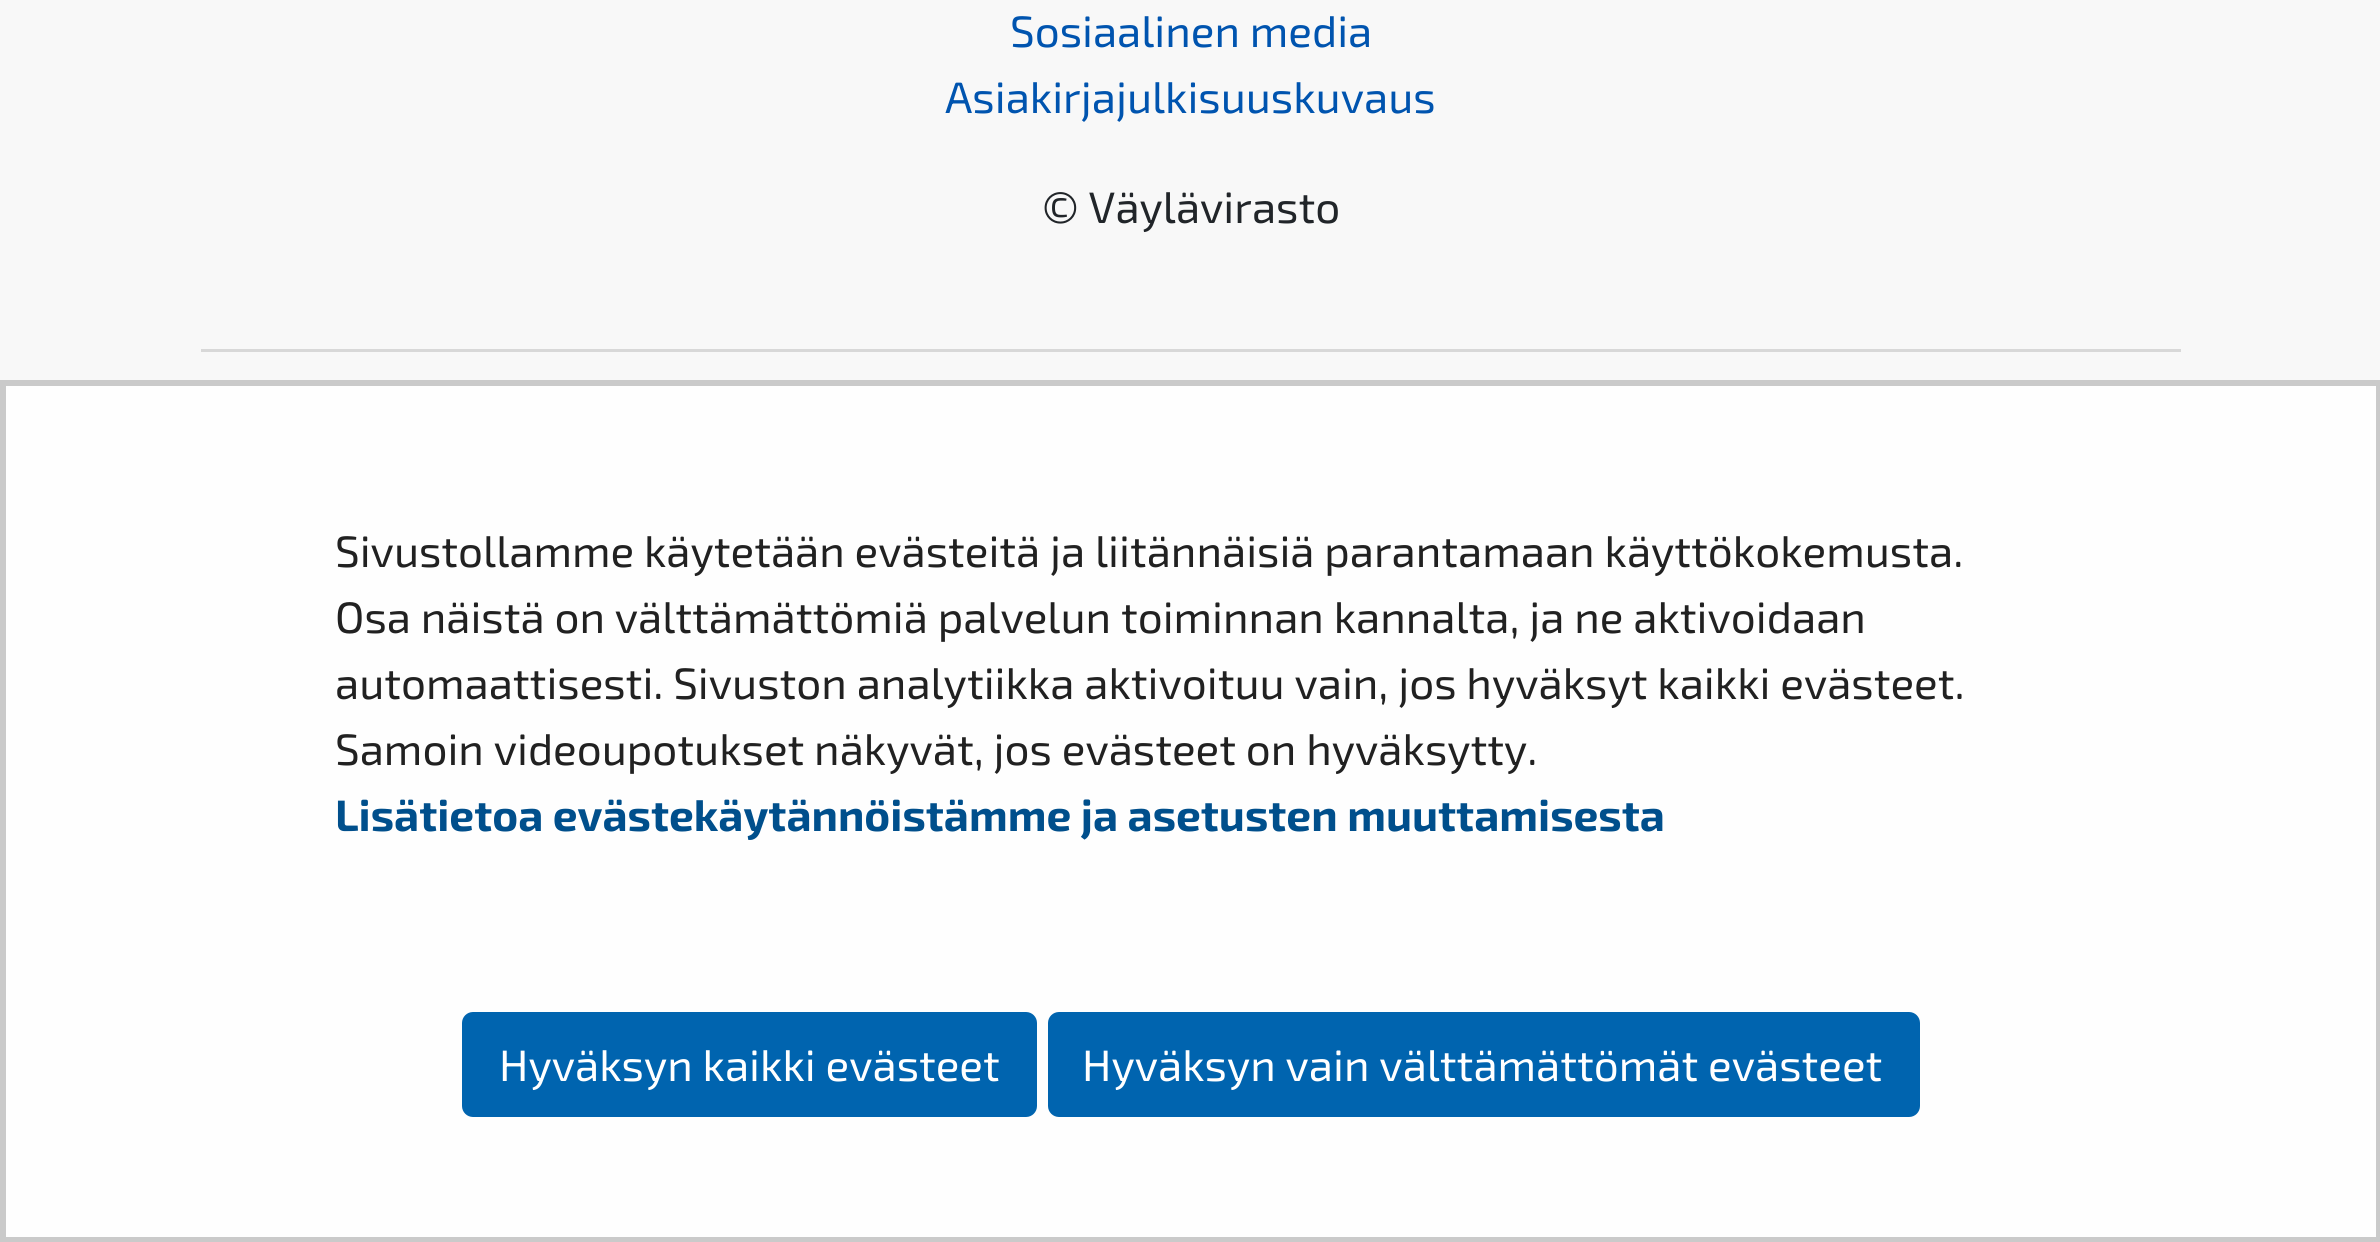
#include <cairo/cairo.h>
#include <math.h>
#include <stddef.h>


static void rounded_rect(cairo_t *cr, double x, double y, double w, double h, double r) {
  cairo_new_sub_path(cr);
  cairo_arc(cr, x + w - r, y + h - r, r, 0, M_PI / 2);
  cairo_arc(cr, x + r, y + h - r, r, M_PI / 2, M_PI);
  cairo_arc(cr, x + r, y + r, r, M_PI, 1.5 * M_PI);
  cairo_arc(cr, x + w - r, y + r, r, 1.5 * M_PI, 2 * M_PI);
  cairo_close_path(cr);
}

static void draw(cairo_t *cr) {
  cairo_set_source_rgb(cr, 248 / 255.0, 248 / 255.0, 248 / 255.0);
  cairo_paint(cr);
  cairo_set_source_rgb(cr, 216 / 255.0, 216 / 255.0, 216 / 255.0);
  cairo_rectangle(cr, 201, 349, 1980, 3);
  cairo_fill(cr);
  cairo_set_source_rgb(cr, 254 / 255.0, 254 / 255.0, 254 / 255.0);
  cairo_rectangle(cr, 3, 383, 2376, 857);
  cairo_fill_preserve(cr);
  cairo_set_source_rgb(cr, 202 / 255.0, 202 / 255.0, 202 / 255.0);
  cairo_set_line_width(cr, 6);
  cairo_stroke(cr);
  cairo_set_source_rgb(cr, 0, 100 / 255.0, 175 / 255.0);
  rounded_rect(cr, 463.5, 1013.5, 572, 102, 9.5);
  cairo_fill_preserve(cr);
  cairo_set_line_width(cr, 3);
  cairo_stroke(cr);
  rounded_rect(cr, 1049.5, 1013.5, 869, 102, 9.5);
  cairo_fill_preserve(cr);
  cairo_stroke(cr);
  cairo_select_font_face(cr, "Exo 2", CAIRO_FONT_SLANT_NORMAL, CAIRO_FONT_WEIGHT_NORMAL);
  cairo_set_font_size(cr, 44);
  cairo_set_source_rgb(cr, 0, 84 / 255.0, 175 / 255.0);
  cairo_move_to(cr, 1010, 47);
  cairo_show_text(cr, "Sosiaalinen media");
  cairo_move_to(cr, 945, 113);
  cairo_show_text(cr, "Asiakirjajulkisuuskuvaus");
  cairo_set_source_rgb(cr, 33 / 255.0, 37 / 255.0, 41 / 255.0);
  cairo_move_to(cr, 1042, 223);
  cairo_show_text(cr, "© Väylävirasto");
  cairo_set_source_rgb(cr, 33 / 255.0, 33 / 255.0, 33 / 255.0);
  cairo_move_to(cr, 335, 567);
  cairo_show_text(cr, "Sivustollamme käytetään evästeitä ja liitännäisiä parantamaan käyttökokemusta.");
  cairo_move_to(cr, 335, 633);
  cairo_show_text(cr, "Osa näistä on välttämättömiä palvelun toiminnan kannalta, ja ne aktivoidaan");
  cairo_move_to(cr, 335, 699);
  cairo_show_text(cr, "automaattisesti. Sivuston analytiikka aktivoituu vain, jos hyväksyt kaikki evästeet.");
  cairo_move_to(cr, 335, 765);
  cairo_show_text(cr, "Samoin videoupotukset näkyvät, jos evästeet on hyväksytty.");
  cairo_select_font_face(cr, "Exo 2", CAIRO_FONT_SLANT_NORMAL, CAIRO_FONT_WEIGHT_BOLD);
  cairo_set_source_rgb(cr, 0, 79 / 255.0, 140 / 255.0);
  cairo_move_to(cr, 335, 831);
  cairo_show_text(cr, "Lisätietoa evästekäytännöistämme ja asetusten muuttamisesta");
  cairo_select_font_face(cr, "Exo 2", CAIRO_FONT_SLANT_NORMAL, CAIRO_FONT_WEIGHT_NORMAL);
  cairo_set_source_rgb(cr, 1, 1, 1);
  cairo_move_to(cr, 499, 1081);
  cairo_show_text(cr, "Hyväksyn kaikki evästeet");
  cairo_move_to(cr, 1082, 1081);
  cairo_show_text(cr, "Hyväksyn vain välttämättömät evästeet");
}

int main(void) {
  cairo_surface_t *surface = cairo_image_surface_create(CAIRO_FORMAT_RGB24, 2380, 1242);
  cairo_t *cr = cairo_create(surface);
  cairo_font_options_t *options = cairo_font_options_create();
  cairo_font_options_set_hint_metrics(options, CAIRO_HINT_METRICS_OFF);
  cairo_font_options_set_hint_style(options, CAIRO_HINT_STYLE_NONE);
  cairo_set_font_options(cr, options);
  cairo_set_miter_limit(cr, 4);
  draw(cr);
  cairo_surface_write_to_png(surface, "out.png");
  cairo_font_options_destroy(options);
  cairo_destroy(cr);
  cairo_surface_destroy(surface);
  return 0;
}
